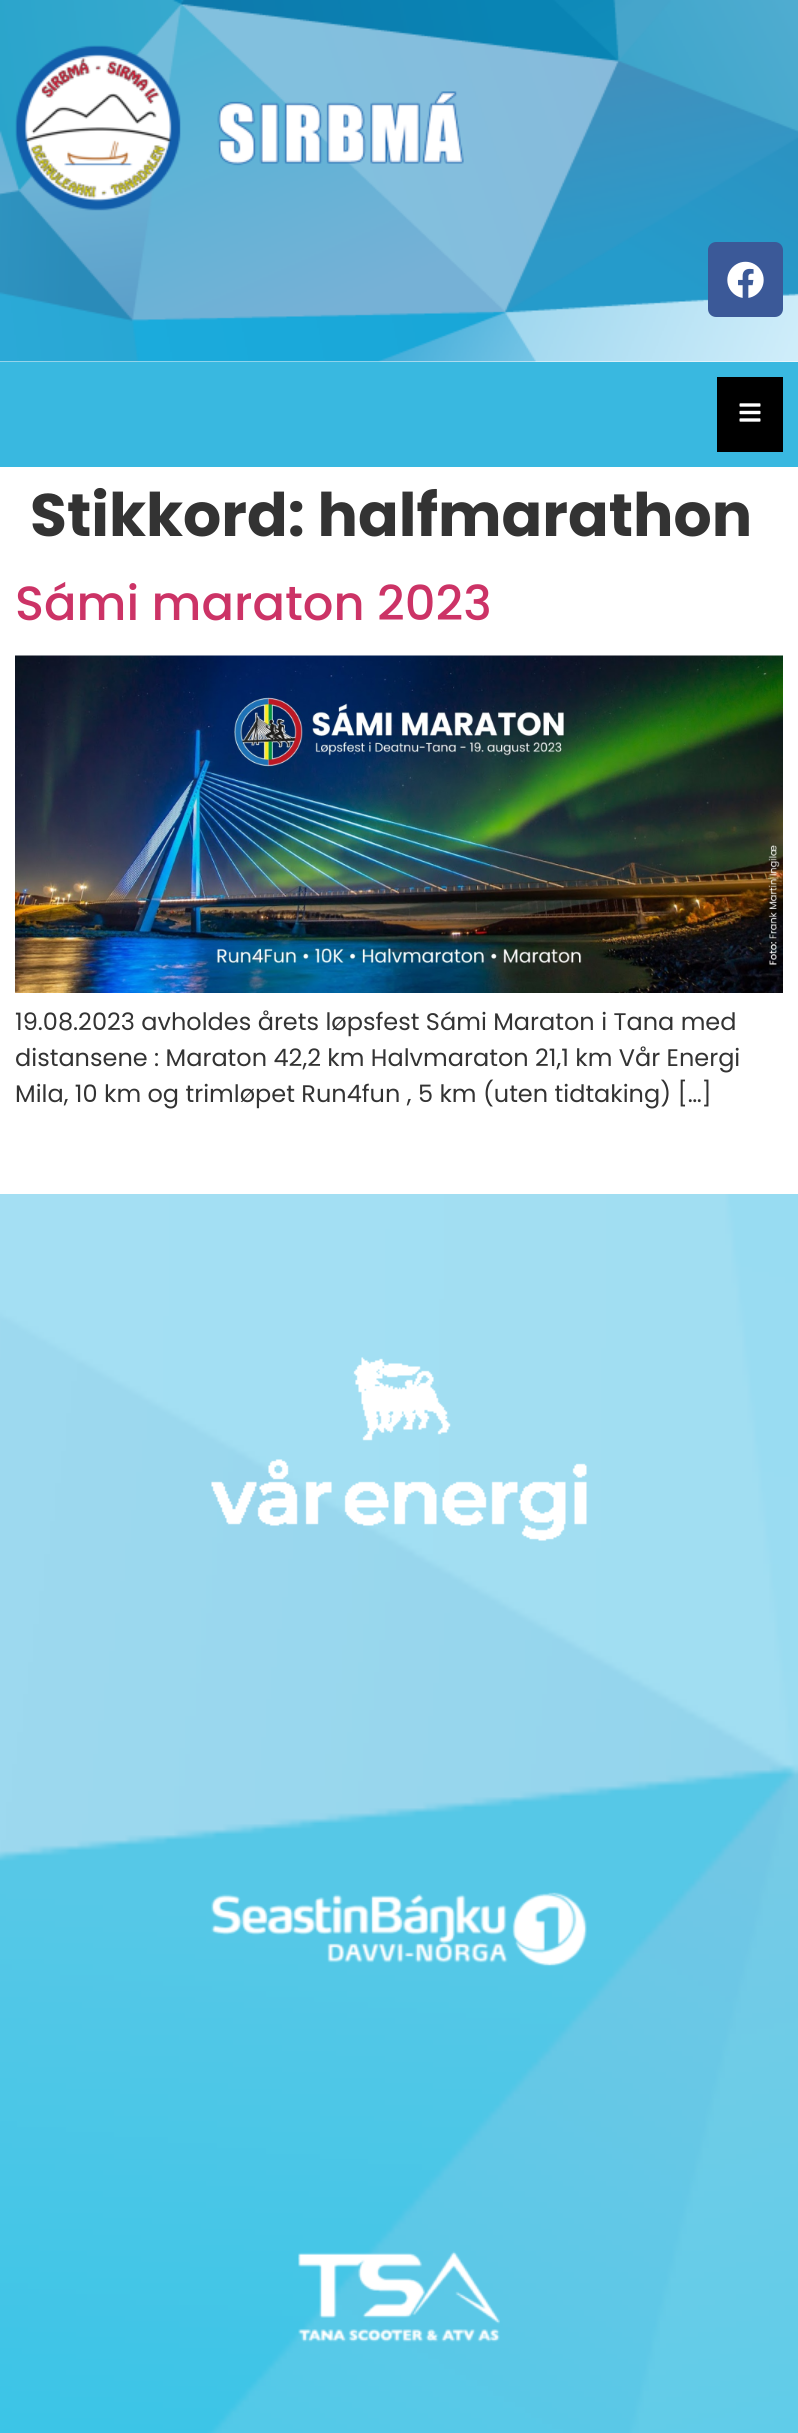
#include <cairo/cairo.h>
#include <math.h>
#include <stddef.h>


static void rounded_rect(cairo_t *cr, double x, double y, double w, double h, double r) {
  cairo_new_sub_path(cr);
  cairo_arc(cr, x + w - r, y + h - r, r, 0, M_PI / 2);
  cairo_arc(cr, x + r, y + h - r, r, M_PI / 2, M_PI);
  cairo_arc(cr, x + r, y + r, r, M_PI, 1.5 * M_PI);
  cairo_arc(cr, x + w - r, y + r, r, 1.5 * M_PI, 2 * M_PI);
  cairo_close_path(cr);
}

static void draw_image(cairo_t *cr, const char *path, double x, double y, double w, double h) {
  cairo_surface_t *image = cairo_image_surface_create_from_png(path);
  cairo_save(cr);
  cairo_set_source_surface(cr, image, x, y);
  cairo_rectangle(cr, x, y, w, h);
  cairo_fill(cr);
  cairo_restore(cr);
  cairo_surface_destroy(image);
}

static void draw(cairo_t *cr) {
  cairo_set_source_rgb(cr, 1, 1, 1);
  cairo_paint(cr);
  draw_image(cr, "images/1.png", 0, 0, 798, 362);
  draw_image(cr, "images/2.png", 15, 45, 449, 166);
  cairo_set_source_rgb(cr, 59 / 255.0, 89 / 255.0, 152 / 255.0);
  rounded_rect(cr, 708, 242, 75, 75, 8);
  cairo_fill(cr);
  draw_image(cr, "images/3.png", 727, 261, 37, 37);
  cairo_set_source_rgb(cr, 57 / 255.0, 184 / 255.0, 224 / 255.0);
  cairo_rectangle(cr, 0, 362, 798, 105);
  cairo_fill(cr);
  cairo_set_source_rgb(cr, 0, 0, 0);
  cairo_rectangle(cr, 717, 377, 66, 75);
  cairo_fill(cr);
  draw_image(cr, "images/4.png", 739, 403, 22, 19);
  draw_image(cr, "images/5.png", 15, 655, 768, 338);
  draw_image(cr, "images/6.png", 0, 1194, 798, 1239);
  draw_image(cr, "images/7.png", 211, 1357, 376, 184);
  draw_image(cr, "images/8.png", 211, 1892, 376, 75);
  draw_image(cr, "images/9.png", 298, 2251, 202, 91);
  cairo_select_font_face(cr, "Poppins", CAIRO_FONT_SLANT_NORMAL, CAIRO_FONT_WEIGHT_BOLD);
  cairo_set_font_size(cr, 60);
  cairo_set_source_rgb(cr, 51 / 255.0, 51 / 255.0, 51 / 255.0);
  cairo_move_to(cr, 30, 536);
  cairo_show_text(cr, "Stikkord: halfmarathon");
  cairo_select_font_face(cr, "Poppins Medium", CAIRO_FONT_SLANT_NORMAL, CAIRO_FONT_WEIGHT_NORMAL);
  cairo_set_font_size(cr, 48);
  cairo_set_source_rgb(cr, 204 / 255.0, 51 / 255.0, 102 / 255.0);
  cairo_move_to(cr, 15, 620);
  cairo_show_text(cr, "Sámi maraton 2023");
  cairo_select_font_face(cr, "Poppins", CAIRO_FONT_SLANT_NORMAL, CAIRO_FONT_WEIGHT_NORMAL);
  cairo_set_font_size(cr, 24);
  cairo_set_source_rgb(cr, 51 / 255.0, 51 / 255.0, 51 / 255.0);
  cairo_move_to(cr, 15, 1030);
  cairo_show_text(cr, "19.08.2023 avholdes årets løpsfest Sámi Maraton i Tana med");
  cairo_move_to(cr, 15, 1066);
  cairo_show_text(cr, "distansene : Maraton 42,2 km Halvmaraton 21,1 km Vår Energi");
  cairo_move_to(cr, 15, 1102);
  cairo_show_text(cr, "Mila, 10 km og trimløpet Run4fun , 5 km (uten tidtaking) […]");
}

int main(void) {
  cairo_surface_t *surface = cairo_image_surface_create(CAIRO_FORMAT_RGB24, 798, 2433);
  cairo_t *cr = cairo_create(surface);
  cairo_font_options_t *options = cairo_font_options_create();
  cairo_font_options_set_hint_metrics(options, CAIRO_HINT_METRICS_OFF);
  cairo_font_options_set_hint_style(options, CAIRO_HINT_STYLE_NONE);
  cairo_set_font_options(cr, options);
  cairo_set_miter_limit(cr, 4);
  draw(cr);
  cairo_surface_write_to_png(surface, "out.png");
  cairo_font_options_destroy(options);
  cairo_destroy(cr);
  cairo_surface_destroy(surface);
  return 0;
}
